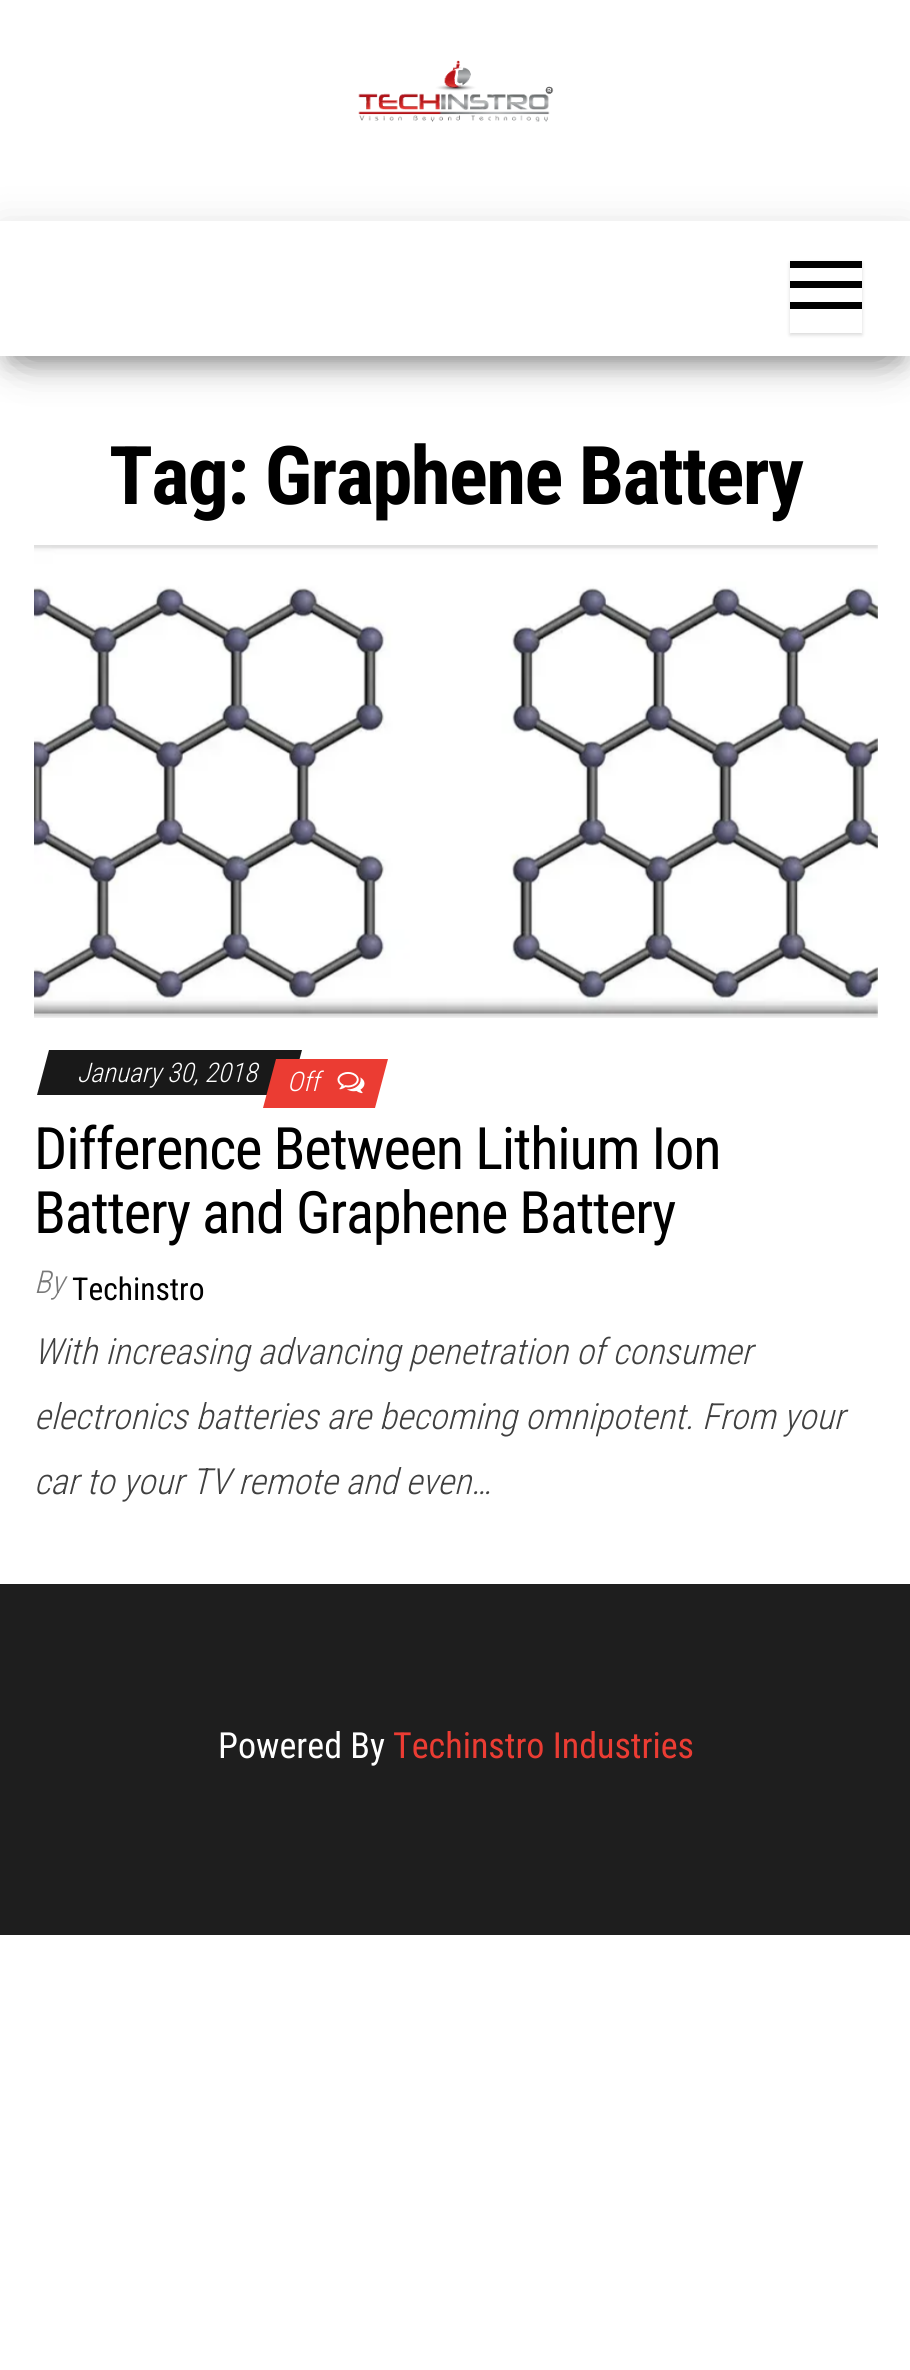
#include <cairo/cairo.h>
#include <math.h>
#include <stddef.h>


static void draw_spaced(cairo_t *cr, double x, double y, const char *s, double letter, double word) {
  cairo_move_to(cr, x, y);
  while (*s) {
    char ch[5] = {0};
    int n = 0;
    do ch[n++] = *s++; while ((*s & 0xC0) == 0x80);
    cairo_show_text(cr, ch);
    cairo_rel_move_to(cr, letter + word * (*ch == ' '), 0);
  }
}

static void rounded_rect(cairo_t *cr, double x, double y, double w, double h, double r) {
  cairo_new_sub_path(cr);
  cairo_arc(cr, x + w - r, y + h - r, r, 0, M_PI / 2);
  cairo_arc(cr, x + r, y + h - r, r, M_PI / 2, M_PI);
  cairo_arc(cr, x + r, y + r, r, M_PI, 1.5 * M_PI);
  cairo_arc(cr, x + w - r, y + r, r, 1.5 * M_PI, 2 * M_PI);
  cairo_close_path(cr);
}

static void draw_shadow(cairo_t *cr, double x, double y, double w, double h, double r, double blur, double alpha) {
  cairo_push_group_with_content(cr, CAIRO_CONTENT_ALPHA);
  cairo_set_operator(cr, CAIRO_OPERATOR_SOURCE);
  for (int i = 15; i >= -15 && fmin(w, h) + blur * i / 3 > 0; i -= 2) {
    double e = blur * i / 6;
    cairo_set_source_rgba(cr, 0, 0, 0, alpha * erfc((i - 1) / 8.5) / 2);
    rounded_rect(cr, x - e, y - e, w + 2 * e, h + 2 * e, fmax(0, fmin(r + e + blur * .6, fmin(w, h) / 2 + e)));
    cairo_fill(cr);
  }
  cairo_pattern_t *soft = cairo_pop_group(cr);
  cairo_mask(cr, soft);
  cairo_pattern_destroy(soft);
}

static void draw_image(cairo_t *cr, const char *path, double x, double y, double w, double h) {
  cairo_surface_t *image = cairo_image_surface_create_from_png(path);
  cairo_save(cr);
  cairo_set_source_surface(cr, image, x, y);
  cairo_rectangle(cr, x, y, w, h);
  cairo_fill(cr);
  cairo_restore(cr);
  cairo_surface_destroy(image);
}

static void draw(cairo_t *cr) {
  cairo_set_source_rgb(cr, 1, 1, 1);
  cairo_paint(cr);
  draw_image(cr, "images/1.png", 358, 60, 196, 62);
  cairo_set_source_rgb(cr, 0, 0, 0);
  draw_shadow(cr, 11, 250, 889, 112, 0, 11, 0.2);
  draw_shadow(cr, 0, 227, 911, 135, 0, 22.5, 0.12);
  draw_shadow(cr, 27, 270, 857, 81, 0, 22.5, 0.42);
  cairo_set_source_rgb(cr, 1, 1, 1);
  cairo_rectangle(cr, 0, 221, 910, 135);
  cairo_fill(cr);
  cairo_save(cr);
  cairo_set_fill_rule(cr, CAIRO_FILL_RULE_EVEN_ODD);
  cairo_new_path(cr);
  cairo_move_to(cr, 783, 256);
  cairo_line_to(cr, 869, 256);
  cairo_line_to(cr, 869, 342);
  cairo_line_to(cr, 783, 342);
  cairo_close_path(cr);
  cairo_move_to(cr, 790, 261);
  cairo_line_to(cr, 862, 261);
  cairo_line_to(cr, 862, 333);
  cairo_line_to(cr, 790, 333);
  cairo_close_path(cr);
  cairo_clip(cr);
  cairo_set_source_rgb(cr, 0, 0, 0);
  draw_shadow(cr, 790, 263, 72, 72, 0, 2, 0.15);
  cairo_restore(cr);
  cairo_set_source_rgb(cr, 0, 0, 0);
  cairo_rectangle(cr, 790, 261, 72, 7);
  cairo_fill(cr);
  cairo_rectangle(cr, 790, 281, 72, 7);
  cairo_fill(cr);
  cairo_rectangle(cr, 790, 302, 72, 7);
  cairo_fill(cr);
  draw_image(cr, "images/2.png", 34, 545, 844, 473);
  cairo_set_source_rgb(cr, 25 / 255.0, 25 / 255.0, 25 / 255.0);
  cairo_new_path(cr);
  cairo_move_to(cr, 49, 1050);
  cairo_line_to(cr, 302, 1050);
  cairo_line_to(cr, 290, 1095);
  cairo_line_to(cr, 37, 1095);
  cairo_close_path(cr);
  cairo_fill(cr);
  cairo_set_source_rgb(cr, 235 / 255.0, 60 / 255.0, 51 / 255.0);
  cairo_new_path(cr);
  cairo_move_to(cr, 276, 1059);
  cairo_line_to(cr, 388, 1059);
  cairo_line_to(cr, 375, 1108);
  cairo_line_to(cr, 263, 1108);
  cairo_close_path(cr);
  cairo_fill(cr);
  draw_image(cr, "images/3.png", 337, 1072, 28, 22);
  cairo_set_source_rgb(cr, 30 / 255.0, 30 / 255.0, 30 / 255.0);
  cairo_rectangle(cr, 0, 1584, 910, 351);
  cairo_fill(cr);
  cairo_select_font_face(cr, "Roboto Condensed", CAIRO_FONT_SLANT_NORMAL, CAIRO_FONT_WEIGHT_BOLD);
  cairo_set_font_size(cr, 81);
  cairo_set_source_rgb(cr, 0, 0, 0);
  draw_spaced(cr, 109, 504, "Tag: Graphene Battery", -1.6, 0);
  cairo_select_font_face(cr, "Roboto Condensed Light", CAIRO_FONT_SLANT_ITALIC, CAIRO_FONT_WEIGHT_NORMAL);
  cairo_set_font_size(cr, 27);
  cairo_set_source_rgb(cr, 1, 1, 1);
  cairo_move_to(cr, 77, 1082);
  cairo_show_text(cr, "January 30, 2018");
  cairo_move_to(cr, 287, 1091);
  cairo_show_text(cr, "Off");
  cairo_select_font_face(cr, "Roboto Condensed", CAIRO_FONT_SLANT_NORMAL, CAIRO_FONT_WEIGHT_NORMAL);
  cairo_set_font_size(cr, 58.5);
  cairo_set_source_rgb(cr, 0, 0, 0);
  draw_spaced(cr, 34, 1169, "Difference Between Lithium Ion", -1.2, 0);
  draw_spaced(cr, 34, 1233, "Battery and Graphene Battery", -1.2, 0);
  cairo_select_font_face(cr, "Roboto Condensed Light", CAIRO_FONT_SLANT_ITALIC, CAIRO_FONT_WEIGHT_NORMAL);
  cairo_set_font_size(cr, 31.5);
  cairo_set_source_rgb(cr, 121 / 255.0, 121 / 255.0, 121 / 255.0);
  cairo_move_to(cr, 34, 1293);
  cairo_show_text(cr, "By");
  cairo_select_font_face(cr, "Roboto Condensed", CAIRO_FONT_SLANT_NORMAL, CAIRO_FONT_WEIGHT_NORMAL);
  cairo_set_source_rgb(cr, 0, 0, 0);
  cairo_move_to(cr, 72, 1300);
  cairo_show_text(cr, "Techinstro");
  cairo_select_font_face(cr, "Roboto Condensed Light", CAIRO_FONT_SLANT_ITALIC, CAIRO_FONT_WEIGHT_NORMAL);
  cairo_set_font_size(cr, 36);
  cairo_set_source_rgb(cr, 64 / 255.0, 64 / 255.0, 64 / 255.0);
  cairo_move_to(cr, 34, 1364);
  cairo_show_text(cr, "With increasing advancing penetration of consumer");
  cairo_move_to(cr, 34, 1429);
  cairo_show_text(cr, "electronics batteries are becoming omnipotent. From your");
  cairo_move_to(cr, 34, 1494);
  cairo_show_text(cr, "car to your TV remote and even…");
  cairo_select_font_face(cr, "Roboto Condensed", CAIRO_FONT_SLANT_NORMAL, CAIRO_FONT_WEIGHT_NORMAL);
  cairo_set_source_rgb(cr, 1, 1, 1);
  cairo_move_to(cr, 218, 1758);
  cairo_show_text(cr, "Powered By");
  cairo_set_source_rgb(cr, 235 / 255.0, 60 / 255.0, 51 / 255.0);
  cairo_move_to(cr, 393, 1758);
  cairo_show_text(cr, "Techinstro Industries");
}

int main(void) {
  cairo_surface_t *surface = cairo_image_surface_create(CAIRO_FORMAT_RGB24, 910, 2370);
  cairo_t *cr = cairo_create(surface);
  cairo_font_options_t *options = cairo_font_options_create();
  cairo_font_options_set_hint_metrics(options, CAIRO_HINT_METRICS_OFF);
  cairo_font_options_set_hint_style(options, CAIRO_HINT_STYLE_NONE);
  cairo_set_font_options(cr, options);
  cairo_set_miter_limit(cr, 4);
  draw(cr);
  cairo_surface_write_to_png(surface, "out.png");
  cairo_font_options_destroy(options);
  cairo_destroy(cr);
  cairo_surface_destroy(surface);
  return 0;
}
